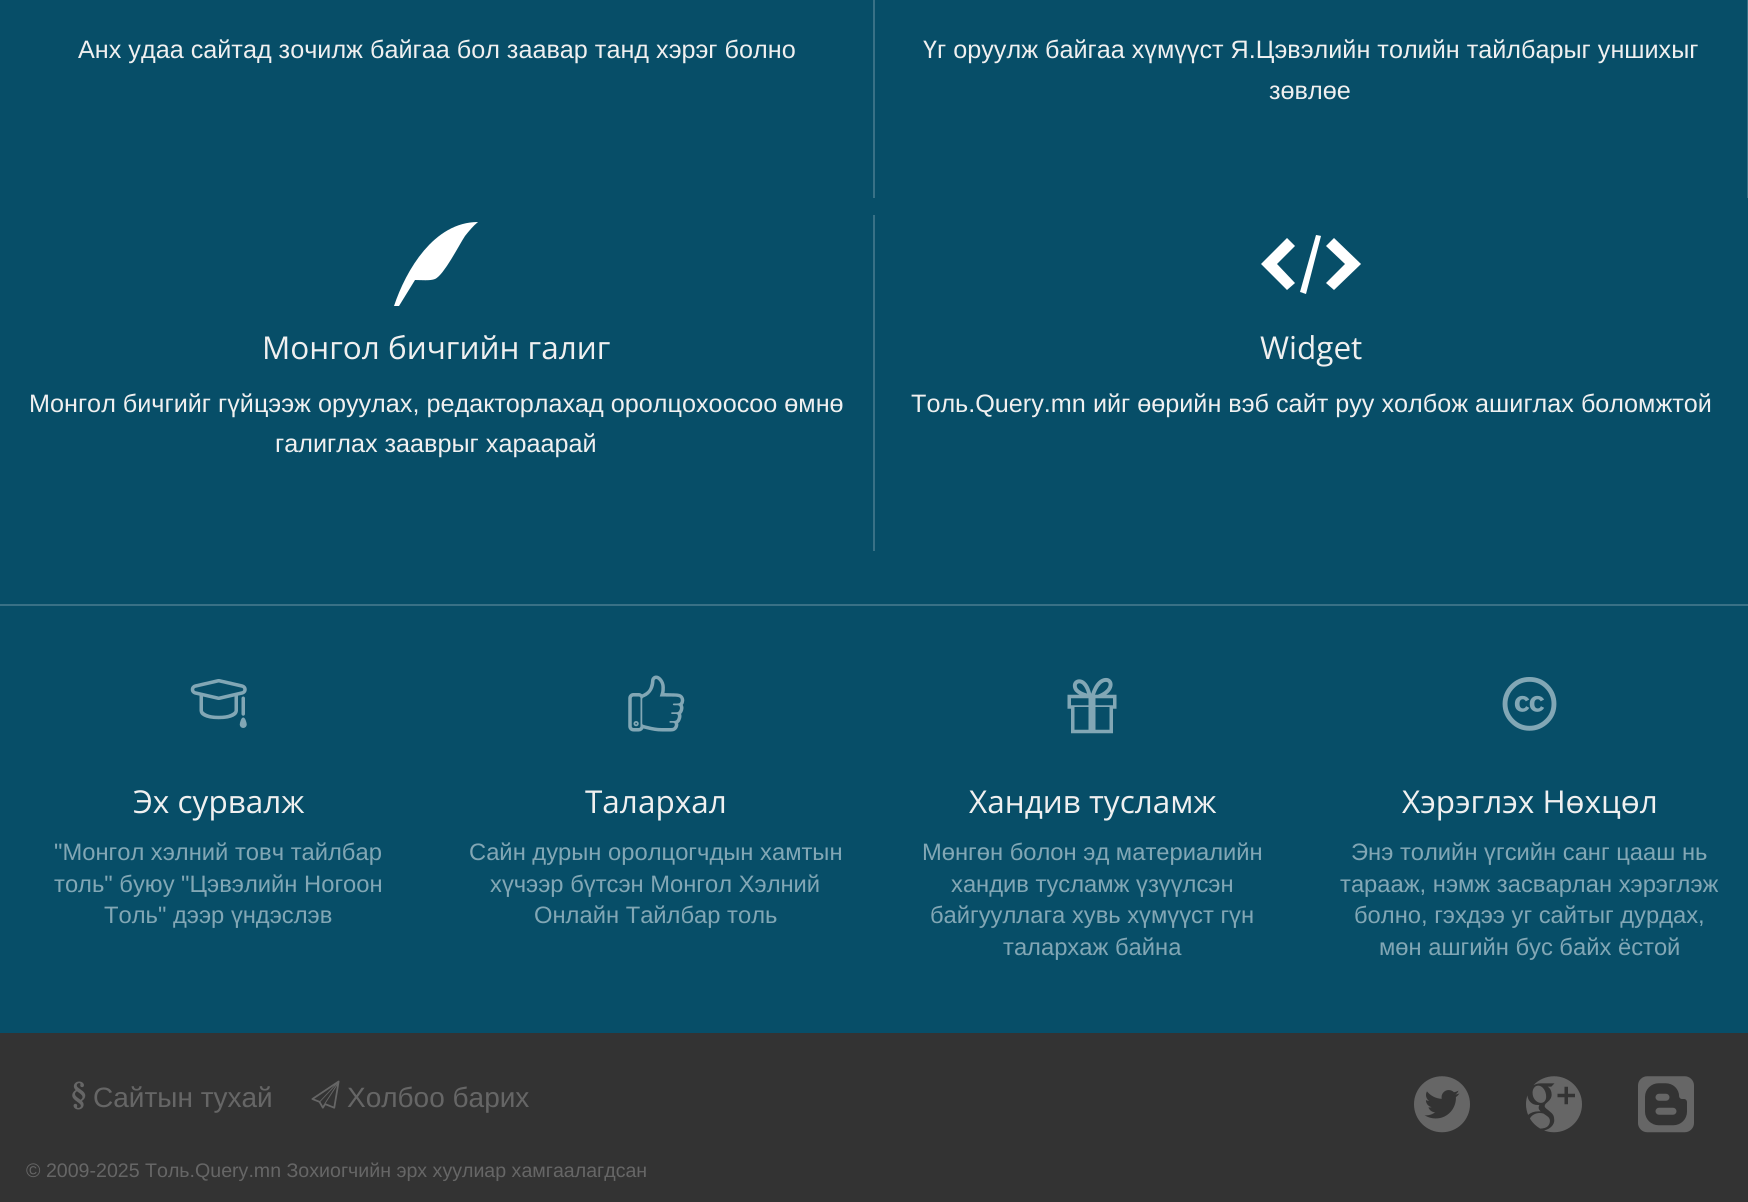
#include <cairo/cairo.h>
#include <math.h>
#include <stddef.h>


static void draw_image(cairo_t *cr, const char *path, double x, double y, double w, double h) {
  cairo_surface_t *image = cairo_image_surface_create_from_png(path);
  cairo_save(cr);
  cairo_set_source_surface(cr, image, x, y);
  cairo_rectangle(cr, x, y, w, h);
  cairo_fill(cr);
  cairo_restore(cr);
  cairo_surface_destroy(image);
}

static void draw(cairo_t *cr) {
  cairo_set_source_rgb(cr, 7 / 255.0, 78 / 255.0, 104 / 255.0);
  cairo_paint(cr);
  cairo_set_source_rgb(cr, 57 / 255.0, 113 / 255.0, 134 / 255.0);
  cairo_rectangle(cr, 873, 0, 2, 198);
  cairo_fill(cr);
  cairo_rectangle(cr, 1747, 0, 1, 198);
  cairo_fill(cr);
  cairo_rectangle(cr, 873, 215, 2, 336);
  cairo_fill(cr);
  cairo_set_source_rgb(cr, 1, 1, 1);
  cairo_new_path(cr);
  cairo_move_to(cr, 394, 306);
  cairo_curve_to(cr, 406, 270, 434, 222, 478, 222);
  cairo_curve_to(cr, 473, 226, 469, 231, 465, 236);
  cairo_curve_to(cr, 459, 245, 444, 275, 435, 279);
  cairo_curve_to(cr, 430, 281, 421, 280, 415, 280);
  cairo_line_to(cr, 399, 306);
  cairo_close_path(cr);
  cairo_fill(cr);
  cairo_new_path(cr);
  cairo_move_to(cr, 1326, 283);
  cairo_line_to(cr, 1334, 290);
  cairo_line_to(cr, 1361, 264);
  cairo_line_to(cr, 1334, 238);
  cairo_line_to(cr, 1326, 246);
  cairo_line_to(cr, 1345, 264);
  cairo_close_path(cr);
  cairo_move_to(cr, 1295, 246);
  cairo_line_to(cr, 1287, 238);
  cairo_line_to(cr, 1261, 264);
  cairo_line_to(cr, 1287, 290);
  cairo_line_to(cr, 1295, 283);
  cairo_line_to(cr, 1277, 264);
  cairo_close_path(cr);
  cairo_move_to(cr, 1316, 235);
  cairo_line_to(cr, 1321, 236);
  cairo_line_to(cr, 1306, 294);
  cairo_line_to(cr, 1300, 292);
  cairo_close_path(cr);
  cairo_fill(cr);
  cairo_set_source_rgb(cr, 57 / 255.0, 113 / 255.0, 134 / 255.0);
  cairo_rectangle(cr, 0, 604, 1748, 2);
  cairo_fill(cr);
  draw_image(cr, "images/1.png", 190, 679, 57, 49);
  draw_image(cr, "images/2.png", 628, 675, 57, 57);
  draw_image(cr, "images/3.png", 1067, 677, 50, 57);
  draw_image(cr, "images/4.png", 1502, 677, 55, 54);
  cairo_set_source_rgb(cr, 51 / 255.0, 51 / 255.0, 51 / 255.0);
  cairo_rectangle(cr, 0, 1033, 1748, 169);
  cairo_fill(cr);
  draw_image(cr, "images/5.png", 72, 1081, 14, 29);
  draw_image(cr, "images/6.png", 311, 1080, 29, 29);
  draw_image(cr, "images/7.png", 1414, 1076, 56, 57);
  draw_image(cr, "images/8.png", 1526, 1076, 56, 57);
  draw_image(cr, "images/9.png", 1638, 1076, 56, 57);
  cairo_select_font_face(cr, "Liberation Sans", CAIRO_FONT_SLANT_NORMAL, CAIRO_FONT_WEIGHT_NORMAL);
  cairo_set_font_size(cr, 25.2);
  cairo_set_source_rgb(cr, 240 / 255.0, 240 / 255.0, 240 / 255.0);
  cairo_move_to(cr, 78, 58);
  cairo_show_text(cr, "Анх удаа сайтад зочилж байгаа бол заавар танд хэрэг болно");
  cairo_move_to(cr, 923, 58);
  cairo_show_text(cr, "Үг оруулж байгаа хүмүүст Я.Цэвэлийн толийн тайлбарыг уншихыг");
  cairo_move_to(cr, 1269, 99);
  cairo_show_text(cr, "зөвлөе");
  cairo_select_font_face(cr, "Open Sans", CAIRO_FONT_SLANT_NORMAL, CAIRO_FONT_WEIGHT_NORMAL);
  cairo_set_font_size(cr, 31.5);
  cairo_move_to(cr, 262, 359);
  cairo_show_text(cr, "Монгол бичгийн галиг");
  cairo_select_font_face(cr, "Liberation Sans", CAIRO_FONT_SLANT_NORMAL, CAIRO_FONT_WEIGHT_NORMAL);
  cairo_set_font_size(cr, 25.2);
  cairo_move_to(cr, 29, 412);
  cairo_show_text(cr, "Монгол бичгийг гүйцээж оруулах, редакторлахад оролцохоосоо өмнө");
  cairo_move_to(cr, 275, 452);
  cairo_show_text(cr, "галиглах зааврыг хараарай");
  cairo_select_font_face(cr, "Open Sans", CAIRO_FONT_SLANT_NORMAL, CAIRO_FONT_WEIGHT_NORMAL);
  cairo_set_font_size(cr, 31.5);
  cairo_move_to(cr, 1260, 359);
  cairo_show_text(cr, "Widget");
  cairo_select_font_face(cr, "Liberation Sans", CAIRO_FONT_SLANT_NORMAL, CAIRO_FONT_WEIGHT_NORMAL);
  cairo_set_font_size(cr, 25.2);
  cairo_move_to(cr, 911, 412);
  cairo_show_text(cr, "Толь.Query.mn ийг өөрийн вэб сайт руу холбож ашиглах боломжтой");
  cairo_select_font_face(cr, "Open Sans", CAIRO_FONT_SLANT_NORMAL, CAIRO_FONT_WEIGHT_NORMAL);
  cairo_set_font_size(cr, 31.5);
  cairo_move_to(cr, 133, 813);
  cairo_show_text(cr, "Эх сурвалж");
  cairo_select_font_face(cr, "Liberation Sans", CAIRO_FONT_SLANT_NORMAL, CAIRO_FONT_WEIGHT_NORMAL);
  cairo_set_font_size(cr, 23.75);
  cairo_set_source_rgb(cr, 130 / 255.0, 167 / 255.0, 181 / 255.0);
  cairo_move_to(cr, 54, 860);
  cairo_show_text(cr, "\"Монгол хэлний товч тайлбар");
  cairo_move_to(cr, 54, 892);
  cairo_show_text(cr, "толь\" буюу \"Цэвэлийн Ногоон");
  cairo_move_to(cr, 104, 923);
  cairo_show_text(cr, "Толь\" дээр үндэслэв");
  cairo_select_font_face(cr, "Open Sans", CAIRO_FONT_SLANT_NORMAL, CAIRO_FONT_WEIGHT_NORMAL);
  cairo_set_font_size(cr, 31.5);
  cairo_set_source_rgb(cr, 240 / 255.0, 240 / 255.0, 240 / 255.0);
  cairo_move_to(cr, 585, 813);
  cairo_show_text(cr, "Талархал");
  cairo_select_font_face(cr, "Liberation Sans", CAIRO_FONT_SLANT_NORMAL, CAIRO_FONT_WEIGHT_NORMAL);
  cairo_set_font_size(cr, 23.75);
  cairo_set_source_rgb(cr, 130 / 255.0, 167 / 255.0, 181 / 255.0);
  cairo_move_to(cr, 469, 860);
  cairo_show_text(cr, "Сайн дурын оролцогчдын хамтын");
  cairo_move_to(cr, 490, 892);
  cairo_show_text(cr, "хүчээр бүтсэн Монгол Хэлний");
  cairo_move_to(cr, 534, 923);
  cairo_show_text(cr, "Онлайн Тайлбар толь");
  cairo_select_font_face(cr, "Open Sans", CAIRO_FONT_SLANT_NORMAL, CAIRO_FONT_WEIGHT_NORMAL);
  cairo_set_font_size(cr, 31.5);
  cairo_set_source_rgb(cr, 240 / 255.0, 240 / 255.0, 240 / 255.0);
  cairo_move_to(cr, 969, 813);
  cairo_show_text(cr, "Хандив тусламж");
  cairo_select_font_face(cr, "Liberation Sans", CAIRO_FONT_SLANT_NORMAL, CAIRO_FONT_WEIGHT_NORMAL);
  cairo_set_font_size(cr, 23.75);
  cairo_set_source_rgb(cr, 130 / 255.0, 167 / 255.0, 181 / 255.0);
  cairo_move_to(cr, 922, 860);
  cairo_show_text(cr, "Мөнгөн болон эд материалийн");
  cairo_move_to(cr, 951, 892);
  cairo_show_text(cr, "хандив тусламж үзүүлсэн");
  cairo_move_to(cr, 930, 923);
  cairo_show_text(cr, "байгууллага хувь хүмүүст гүн");
  cairo_move_to(cr, 1003, 955);
  cairo_show_text(cr, "талархаж байна");
  cairo_select_font_face(cr, "Open Sans", CAIRO_FONT_SLANT_NORMAL, CAIRO_FONT_WEIGHT_NORMAL);
  cairo_set_font_size(cr, 31.5);
  cairo_set_source_rgb(cr, 240 / 255.0, 240 / 255.0, 240 / 255.0);
  cairo_move_to(cr, 1402, 813);
  cairo_show_text(cr, "Хэрэглэх Нөхцөл");
  cairo_select_font_face(cr, "Liberation Sans", CAIRO_FONT_SLANT_NORMAL, CAIRO_FONT_WEIGHT_NORMAL);
  cairo_set_font_size(cr, 23.75);
  cairo_set_source_rgb(cr, 130 / 255.0, 167 / 255.0, 181 / 255.0);
  cairo_move_to(cr, 1351, 860);
  cairo_show_text(cr, "Энэ толийн үгсийн санг цааш нь");
  cairo_move_to(cr, 1340, 892);
  cairo_show_text(cr, "тарааж, нэмж засварлан хэрэглэж");
  cairo_move_to(cr, 1354, 923);
  cairo_show_text(cr, "болно, гэхдээ уг сайтыг дурдах,");
  cairo_move_to(cr, 1379, 955);
  cairo_show_text(cr, "мөн ашгийн бус байх ёстой");
  cairo_set_font_size(cr, 28);
  cairo_set_source_rgb(cr, 102 / 255.0, 102 / 255.0, 102 / 255.0);
  cairo_move_to(cr, 93, 1107);
  cairo_show_text(cr, "Сайтын тухай");
  cairo_move_to(cr, 347, 1107);
  cairo_show_text(cr, "Холбоо барих");
  cairo_set_font_size(cr, 19.6);
  cairo_move_to(cr, 26, 1177);
  cairo_show_text(cr, "© 2009-2025 Толь.Query.mn Зохиогчийн эрх хуулиар хамгаалагдсан");
}

int main(void) {
  cairo_surface_t *surface = cairo_image_surface_create(CAIRO_FORMAT_RGB24, 1748, 1202);
  cairo_t *cr = cairo_create(surface);
  cairo_font_options_t *options = cairo_font_options_create();
  cairo_font_options_set_hint_metrics(options, CAIRO_HINT_METRICS_OFF);
  cairo_font_options_set_hint_style(options, CAIRO_HINT_STYLE_NONE);
  cairo_set_font_options(cr, options);
  cairo_set_miter_limit(cr, 4);
  draw(cr);
  cairo_surface_write_to_png(surface, "out.png");
  cairo_font_options_destroy(options);
  cairo_destroy(cr);
  cairo_surface_destroy(surface);
  return 0;
}
